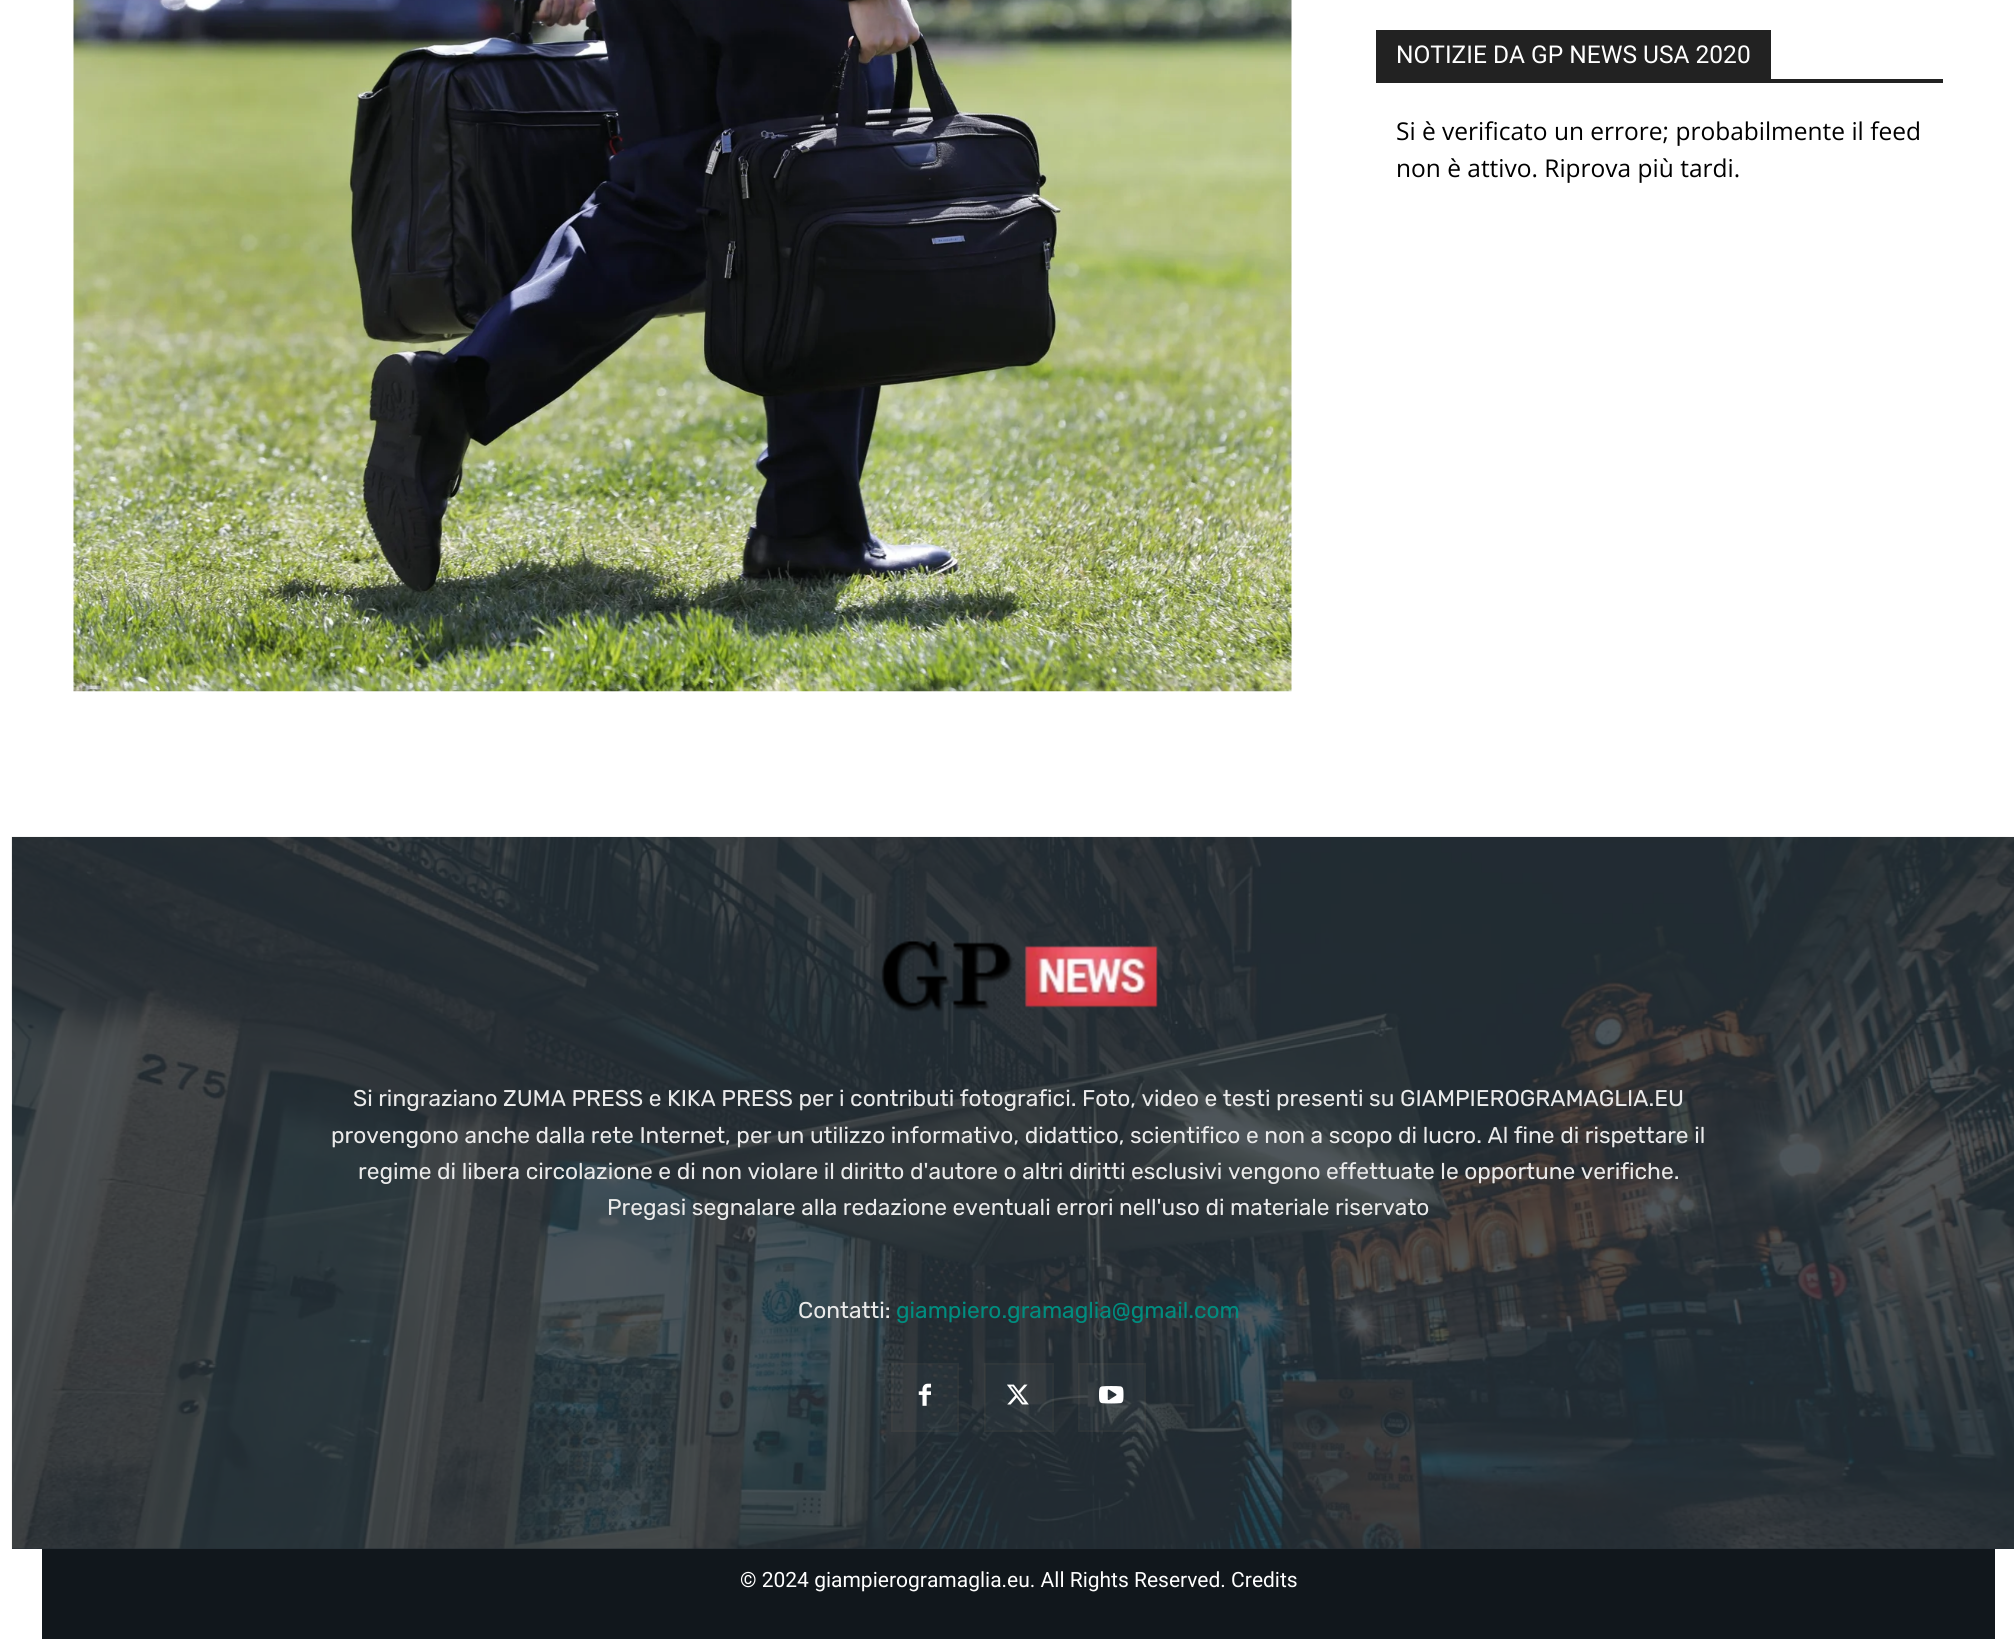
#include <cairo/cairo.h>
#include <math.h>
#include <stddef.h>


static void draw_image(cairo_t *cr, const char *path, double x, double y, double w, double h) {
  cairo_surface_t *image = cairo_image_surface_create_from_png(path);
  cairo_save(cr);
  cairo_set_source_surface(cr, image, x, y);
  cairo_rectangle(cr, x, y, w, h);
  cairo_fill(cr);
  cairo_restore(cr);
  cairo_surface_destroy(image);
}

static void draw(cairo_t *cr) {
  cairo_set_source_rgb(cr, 1, 1, 1);
  cairo_paint(cr);
  draw_image(cr, "images/1.png", 73, 0, 1219, 692);
  cairo_set_source_rgb(cr, 34 / 255.0, 34 / 255.0, 34 / 255.0);
  cairo_rectangle(cr, 1376, 79, 567, 4);
  cairo_fill(cr);
  cairo_rectangle(cr, 1376, 30, 395, 49);
  cairo_fill(cr);
  cairo_set_source_rgb(cr, 35 / 255.0, 45 / 255.0, 53 / 255.0);
  cairo_rectangle(cr, 12, 837, 2002, 712);
  cairo_fill(cr);
  draw_image(cr, "images/2.png", 11, 836, 2003, 713);
  draw_image(cr, "images/3.png", 881, 941, 277, 71);
  cairo_set_source_rgba(cr, 1, 1, 1, 0.03);
  cairo_rectangle(cr, 891, 1363, 68, 69);
  cairo_fill(cr);
  cairo_rectangle(cr, 892, 1364, 66, 67);
  cairo_set_source_rgba(cr, 203 / 255.0, 149 / 255.0, 88 / 255.0, 0.03);
  cairo_stroke(cr);
  draw_image(cr, "images/4.png", 918, 1383, 13, 23);
  cairo_set_source_rgba(cr, 1, 1, 1, 0.03);
  cairo_rectangle(cr, 984, 1363, 70, 69);
  cairo_fill(cr);
  cairo_rectangle(cr, 985, 1364, 68, 67);
  cairo_set_source_rgba(cr, 203 / 255.0, 149 / 255.0, 88 / 255.0, 0.03);
  cairo_stroke(cr);
  draw_image(cr, "images/5.png", 1007, 1384, 22, 21);
  cairo_set_source_rgba(cr, 1, 1, 1, 0.03);
  cairo_rectangle(cr, 1078, 1363, 68, 69);
  cairo_fill(cr);
  cairo_rectangle(cr, 1079, 1364, 66, 67);
  cairo_set_source_rgba(cr, 203 / 255.0, 149 / 255.0, 88 / 255.0, 0.03);
  cairo_stroke(cr);
  draw_image(cr, "images/6.png", 1099, 1386, 25, 18);
  cairo_set_source_rgb(cr, 17 / 255.0, 23 / 255.0, 28 / 255.0);
  cairo_rectangle(cr, 42, 1549, 1953, 90);
  cairo_fill(cr);
  cairo_select_font_face(cr, "Roboto", CAIRO_FONT_SLANT_NORMAL, CAIRO_FONT_WEIGHT_NORMAL);
  cairo_set_font_size(cr, 24.5);
  cairo_set_source_rgb(cr, 1, 1, 1);
  cairo_move_to(cr, 1396, 63);
  cairo_show_text(cr, "NOTIZIE DA GP NEWS USA 2020");
  cairo_select_font_face(cr, "Open Sans", CAIRO_FONT_SLANT_NORMAL, CAIRO_FONT_WEIGHT_NORMAL);
  cairo_set_source_rgb(cr, 0, 0, 0);
  cairo_move_to(cr, 1396, 140);
  cairo_show_text(cr, "Si è verificato un errore; probabilmente il feed");
  cairo_move_to(cr, 1396, 177);
  cairo_show_text(cr, "non è attivo. Riprova più tardi.");
  cairo_select_font_face(cr, "Rubik", CAIRO_FONT_SLANT_NORMAL, CAIRO_FONT_WEIGHT_NORMAL);
  cairo_set_font_size(cr, 22.75);
  cairo_set_source_rgb(cr, 234 / 255.0, 234 / 255.0, 234 / 255.0);
  cairo_move_to(cr, 353, 1106);
  cairo_show_text(cr, "Si ringraziano ZUMA PRESS e KIKA PRESS per i contributi fotografici. Foto, video e testi presenti su GIAMPIEROGRAMAGLIA.EU");
  cairo_move_to(cr, 331, 1143);
  cairo_show_text(cr, "provengono anche dalla rete Internet, per un utilizzo informativo, didattico, scientifico e non a scopo di lucro. Al fine di rispettare il");
  cairo_move_to(cr, 358, 1179);
  cairo_show_text(cr, "regime di libera circolazione e di non violare il diritto d'autore o altri diritti esclusivi vengono effettuate le opportune verifiche.");
  cairo_move_to(cr, 607, 1215);
  cairo_show_text(cr, "Pregasi segnalare alla redazione eventuali errori nell'uso di materiale riservato");
  cairo_move_to(cr, 798, 1318);
  cairo_show_text(cr, "Contatti:");
  cairo_set_source_rgb(cr, 0, 141 / 255.0, 127 / 255.0);
  cairo_move_to(cr, 896, 1318);
  cairo_show_text(cr, "giampiero.gramaglia@gmail.com");
  cairo_select_font_face(cr, "Roboto", CAIRO_FONT_SLANT_NORMAL, CAIRO_FONT_WEIGHT_NORMAL);
  cairo_set_font_size(cr, 21);
  cairo_set_source_rgb(cr, 1, 1, 1);
  cairo_move_to(cr, 740, 1587);
  cairo_show_text(cr, "© 2024 giampierogramaglia.eu. All Rights Reserved. Credits");
}

int main(void) {
  cairo_surface_t *surface = cairo_image_surface_create(CAIRO_FORMAT_RGB24, 2014, 1639);
  cairo_t *cr = cairo_create(surface);
  cairo_font_options_t *options = cairo_font_options_create();
  cairo_font_options_set_hint_metrics(options, CAIRO_HINT_METRICS_OFF);
  cairo_font_options_set_hint_style(options, CAIRO_HINT_STYLE_NONE);
  cairo_set_font_options(cr, options);
  cairo_set_miter_limit(cr, 4);
  draw(cr);
  cairo_surface_write_to_png(surface, "out.png");
  cairo_font_options_destroy(options);
  cairo_destroy(cr);
  cairo_surface_destroy(surface);
  return 0;
}
